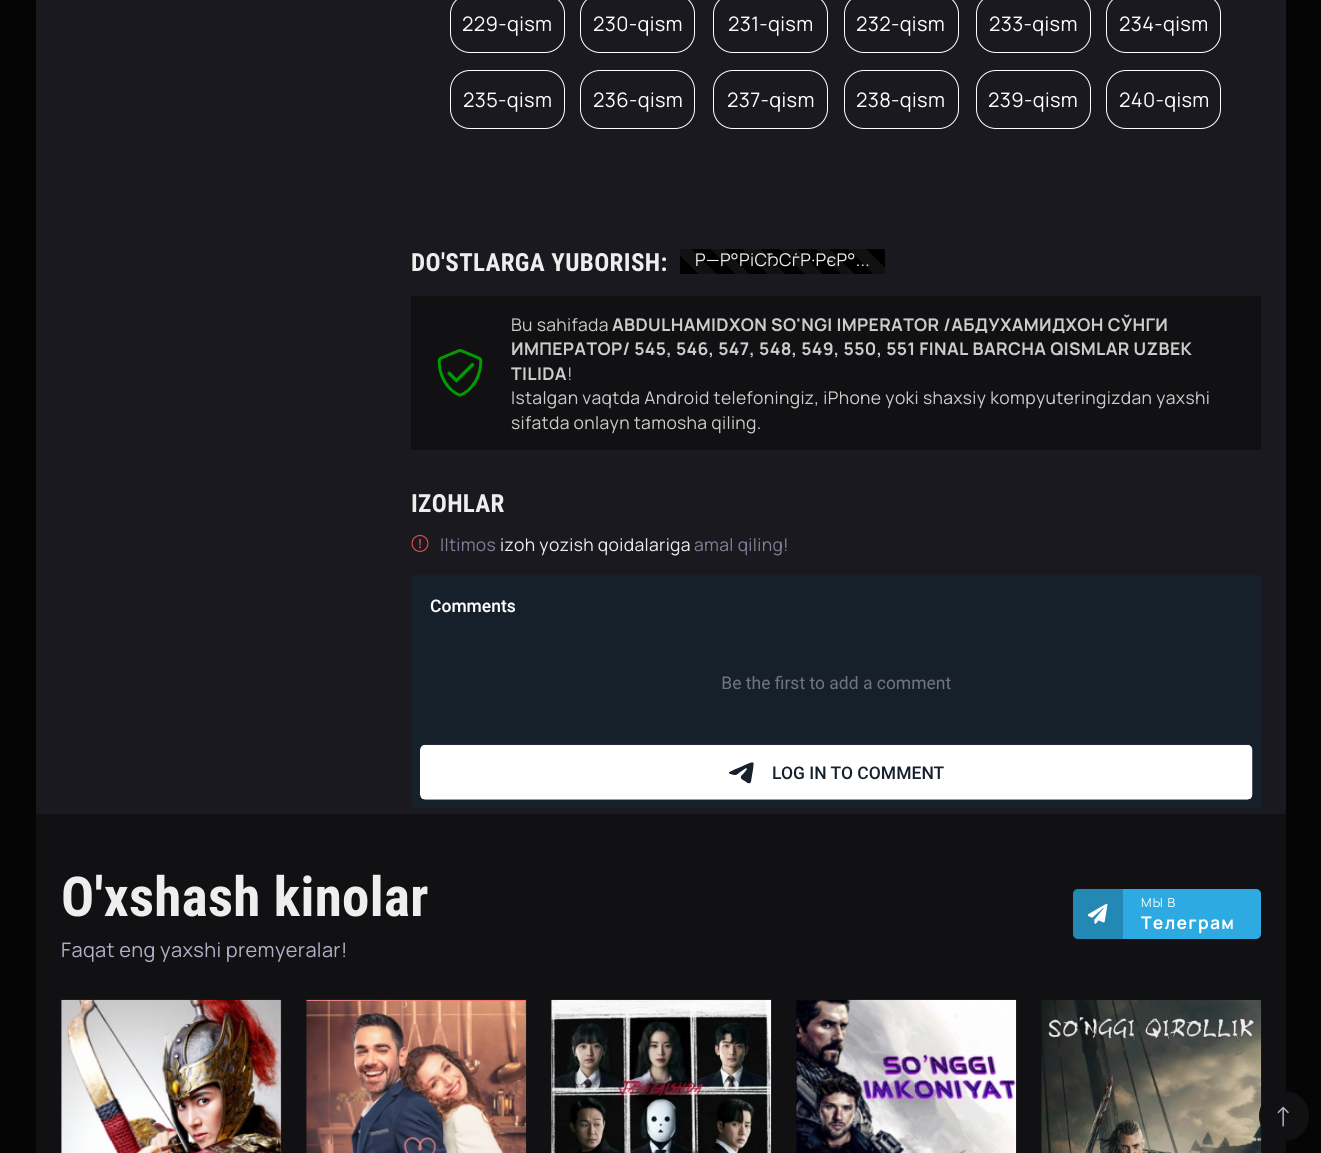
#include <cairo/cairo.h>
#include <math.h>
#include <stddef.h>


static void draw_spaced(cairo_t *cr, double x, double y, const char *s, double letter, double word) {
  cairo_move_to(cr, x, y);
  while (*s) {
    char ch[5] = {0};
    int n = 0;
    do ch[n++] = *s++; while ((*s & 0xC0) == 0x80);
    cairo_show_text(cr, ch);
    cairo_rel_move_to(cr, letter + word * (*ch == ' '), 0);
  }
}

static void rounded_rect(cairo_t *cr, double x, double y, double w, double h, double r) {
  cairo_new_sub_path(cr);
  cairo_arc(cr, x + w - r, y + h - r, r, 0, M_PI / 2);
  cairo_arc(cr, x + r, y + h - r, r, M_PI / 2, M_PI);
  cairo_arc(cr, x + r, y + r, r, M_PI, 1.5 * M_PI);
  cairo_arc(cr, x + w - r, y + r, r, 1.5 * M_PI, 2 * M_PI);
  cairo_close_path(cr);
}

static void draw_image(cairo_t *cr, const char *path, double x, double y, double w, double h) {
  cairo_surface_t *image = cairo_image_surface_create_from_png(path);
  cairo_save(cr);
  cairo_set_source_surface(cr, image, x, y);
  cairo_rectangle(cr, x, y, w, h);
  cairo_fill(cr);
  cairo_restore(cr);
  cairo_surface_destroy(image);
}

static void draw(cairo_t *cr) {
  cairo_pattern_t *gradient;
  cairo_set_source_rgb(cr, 5 / 255.0, 5 / 255.0, 6 / 255.0);
  cairo_paint(cr);
  cairo_set_source_rgb(cr, 26 / 255.0, 25 / 255.0, 31 / 255.0);
  cairo_rectangle(cr, 36, 0, 1250, 814);
  cairo_fill(cr);
  rounded_rect(cr, 450.5, -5.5, 114, 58, 19.5);
  cairo_set_source_rgb(cr, 1, 1, 1);
  cairo_set_line_width(cr, 1);
  cairo_stroke(cr);
  rounded_rect(cr, 580.5, -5.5, 114, 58, 19.5);
  cairo_stroke(cr);
  rounded_rect(cr, 713.5, -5.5, 114, 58, 19.5);
  cairo_stroke(cr);
  rounded_rect(cr, 844.5, -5.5, 114, 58, 19.5);
  cairo_stroke(cr);
  rounded_rect(cr, 976.5, -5.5, 114, 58, 19.5);
  cairo_stroke(cr);
  rounded_rect(cr, 1106.5, -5.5, 114, 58, 19.5);
  cairo_stroke(cr);
  rounded_rect(cr, 450.5, 70.5, 114, 58, 19.5);
  cairo_stroke(cr);
  rounded_rect(cr, 580.5, 70.5, 114, 58, 19.5);
  cairo_stroke(cr);
  rounded_rect(cr, 713.5, 70.5, 114, 58, 19.5);
  cairo_stroke(cr);
  rounded_rect(cr, 844.5, 70.5, 114, 58, 19.5);
  cairo_stroke(cr);
  rounded_rect(cr, 976.5, 70.5, 114, 58, 19.5);
  cairo_stroke(cr);
  rounded_rect(cr, 1106.5, 70.5, 114, 58, 19.5);
  cairo_stroke(cr);
  gradient = cairo_pattern_create_linear(776, 370, 1006, 140);
  cairo_pattern_add_color_stop_rgba(gradient, 0, 0, 0, 0, 1);
  cairo_pattern_add_color_stop_rgba(gradient, 0.04, 0, 0, 0, 1);
  cairo_pattern_add_color_stop_rgba(gradient, 0.04, 17 / 255.0, 17 / 255.0, 17 / 255.0, 1);
  cairo_pattern_add_color_stop_rgba(gradient, 0.08, 17 / 255.0, 17 / 255.0, 17 / 255.0, 1);
  cairo_pattern_add_color_stop_rgba(gradient, 0.08, 0, 0, 0, 1);
  cairo_pattern_add_color_stop_rgba(gradient, 0.12, 0, 0, 0, 1);
  cairo_pattern_add_color_stop_rgba(gradient, 0.12, 17 / 255.0, 17 / 255.0, 17 / 255.0, 1);
  cairo_pattern_add_color_stop_rgba(gradient, 0.15, 17 / 255.0, 17 / 255.0, 17 / 255.0, 1);
  cairo_pattern_add_color_stop_rgba(gradient, 0.15, 0, 0, 0, 1);
  cairo_pattern_add_color_stop_rgba(gradient, 0.19, 0, 0, 0, 1);
  cairo_pattern_add_color_stop_rgba(gradient, 0.19, 17 / 255.0, 17 / 255.0, 17 / 255.0, 1);
  cairo_pattern_add_color_stop_rgba(gradient, 0.23, 17 / 255.0, 17 / 255.0, 17 / 255.0, 1);
  cairo_pattern_add_color_stop_rgba(gradient, 0.23, 0, 0, 0, 1);
  cairo_pattern_add_color_stop_rgba(gradient, 0.27, 0, 0, 0, 1);
  cairo_pattern_add_color_stop_rgba(gradient, 0.27, 17 / 255.0, 17 / 255.0, 17 / 255.0, 1);
  cairo_pattern_add_color_stop_rgba(gradient, 0.31, 17 / 255.0, 17 / 255.0, 17 / 255.0, 1);
  cairo_pattern_add_color_stop_rgba(gradient, 0.31, 0, 0, 0, 1);
  cairo_pattern_add_color_stop_rgba(gradient, 0.35, 0, 0, 0, 1);
  cairo_pattern_add_color_stop_rgba(gradient, 0.35, 17 / 255.0, 17 / 255.0, 17 / 255.0, 1);
  cairo_pattern_add_color_stop_rgba(gradient, 0.38, 17 / 255.0, 17 / 255.0, 17 / 255.0, 1);
  cairo_pattern_add_color_stop_rgba(gradient, 0.38, 0, 0, 0, 1);
  cairo_pattern_add_color_stop_rgba(gradient, 0.42, 0, 0, 0, 1);
  cairo_pattern_add_color_stop_rgba(gradient, 0.42, 17 / 255.0, 17 / 255.0, 17 / 255.0, 1);
  cairo_pattern_add_color_stop_rgba(gradient, 0.46, 17 / 255.0, 17 / 255.0, 17 / 255.0, 1);
  cairo_pattern_add_color_stop_rgba(gradient, 0.46, 0, 0, 0, 1);
  cairo_pattern_add_color_stop_rgba(gradient, 0.5, 0, 0, 0, 1);
  cairo_pattern_add_color_stop_rgba(gradient, 0.5, 17 / 255.0, 17 / 255.0, 17 / 255.0, 1);
  cairo_pattern_add_color_stop_rgba(gradient, 0.54, 17 / 255.0, 17 / 255.0, 17 / 255.0, 1);
  cairo_pattern_add_color_stop_rgba(gradient, 0.54, 0, 0, 0, 1);
  cairo_pattern_add_color_stop_rgba(gradient, 0.58, 0, 0, 0, 1);
  cairo_pattern_add_color_stop_rgba(gradient, 0.58, 17 / 255.0, 17 / 255.0, 17 / 255.0, 1);
  cairo_pattern_add_color_stop_rgba(gradient, 0.62, 17 / 255.0, 17 / 255.0, 17 / 255.0, 1);
  cairo_pattern_add_color_stop_rgba(gradient, 0.62, 0, 0, 0, 1);
  cairo_pattern_add_color_stop_rgba(gradient, 0.65, 0, 0, 0, 1);
  cairo_pattern_add_color_stop_rgba(gradient, 0.65, 17 / 255.0, 17 / 255.0, 17 / 255.0, 1);
  cairo_pattern_add_color_stop_rgba(gradient, 0.69, 17 / 255.0, 17 / 255.0, 17 / 255.0, 1);
  cairo_pattern_add_color_stop_rgba(gradient, 0.69, 0, 0, 0, 1);
  cairo_pattern_add_color_stop_rgba(gradient, 0.73, 0, 0, 0, 1);
  cairo_pattern_add_color_stop_rgba(gradient, 0.73, 17 / 255.0, 17 / 255.0, 17 / 255.0, 1);
  cairo_pattern_add_color_stop_rgba(gradient, 0.77, 17 / 255.0, 17 / 255.0, 17 / 255.0, 1);
  cairo_pattern_add_color_stop_rgba(gradient, 0.77, 0, 0, 0, 1);
  cairo_pattern_add_color_stop_rgba(gradient, 0.81, 0, 0, 0, 1);
  cairo_pattern_add_color_stop_rgba(gradient, 0.81, 17 / 255.0, 17 / 255.0, 17 / 255.0, 1);
  cairo_pattern_add_color_stop_rgba(gradient, 0.85, 17 / 255.0, 17 / 255.0, 17 / 255.0, 1);
  cairo_pattern_add_color_stop_rgba(gradient, 0.85, 0, 0, 0, 1);
  cairo_pattern_add_color_stop_rgba(gradient, 0.88, 0, 0, 0, 1);
  cairo_pattern_add_color_stop_rgba(gradient, 0.88, 17 / 255.0, 17 / 255.0, 17 / 255.0, 1);
  cairo_pattern_add_color_stop_rgba(gradient, 0.92, 17 / 255.0, 17 / 255.0, 17 / 255.0, 1);
  cairo_pattern_add_color_stop_rgba(gradient, 0.92, 0, 0, 0, 1);
  cairo_pattern_add_color_stop_rgba(gradient, 0.96, 0, 0, 0, 1);
  cairo_pattern_add_color_stop_rgba(gradient, 0.96, 17 / 255.0, 17 / 255.0, 17 / 255.0, 1);
  cairo_pattern_add_color_stop_rgba(gradient, 1, 17 / 255.0, 17 / 255.0, 17 / 255.0, 1);
  cairo_set_source(cr, gradient);
  cairo_pattern_destroy(gradient);
  cairo_rectangle(cr, 680, 249, 205, 25);
  cairo_fill(cr);
  cairo_set_source_rgb(cr, 17 / 255.0, 17 / 255.0, 19 / 255.0);
  cairo_rectangle(cr, 411, 296, 850, 154);
  cairo_fill(cr);
  draw_image(cr, "images/1.png", 437, 349, 46, 48);
  draw_image(cr, "images/2.png", 411, 535, 18, 17);
  draw_image(cr, "images/3.png", 411, 575, 850, 233);
  cairo_rectangle(cr, 36, 814, 1250, 339);
  cairo_fill(cr);
  cairo_set_source_rgb(cr, 45 / 255.0, 170 / 255.0, 225 / 255.0);
  rounded_rect(cr, 1073, 889, 188, 50, 5);
  cairo_fill(cr);
  cairo_set_source_rgba(cr, 0, 0, 0, 0.2);
  cairo_new_path(cr);
  cairo_move_to(cr, 1078, 889);
  cairo_line_to(cr, 1123, 889);
  cairo_line_to(cr, 1123, 939);
  cairo_line_to(cr, 1078, 939);
  cairo_curve_to(cr, 1075, 939, 1073, 937, 1073, 934);
  cairo_line_to(cr, 1073, 894);
  cairo_curve_to(cr, 1073, 891, 1075, 889, 1078, 889);
  cairo_close_path(cr);
  cairo_fill(cr);
  draw_image(cr, "images/4.png", 1088, 904, 20, 20);
  draw_image(cr, "images/5.png", 61, 999, 221, 154);
  draw_image(cr, "images/6.png", 306, 999, 221, 154);
  draw_image(cr, "images/7.png", 551, 999, 221, 154);
  draw_image(cr, "images/8.png", 796, 999, 221, 154);
  draw_image(cr, "images/9.png", 1041, 1000, 221, 153);
  cairo_set_source_rgb(cr, 17 / 255.0, 17 / 255.0, 19 / 255.0);
  cairo_arc(cr, 1284, 1116, 25, 0, 2 * M_PI);
  cairo_fill(cr);
  draw_image(cr, "images/10.png", 1277, 1106, 12, 21);
  cairo_select_font_face(cr, "Manrope ExtraLight", CAIRO_FONT_SLANT_NORMAL, CAIRO_FONT_WEIGHT_NORMAL);
  cairo_set_font_size(cr, 20);
  cairo_set_source_rgb(cr, 1, 1, 1);
  draw_spaced(cr, 462, 31, "229-qism", 0.35, 0);
  draw_spaced(cr, 593, 31, "230-qism", 0.35, 0);
  draw_spaced(cr, 728, 31, "231-qism", 0.35, 0);
  draw_spaced(cr, 856, 31, "232-qism", 0.35, 0);
  draw_spaced(cr, 989, 31, "233-qism", 0.35, 0);
  draw_spaced(cr, 1119, 31, "234-qism", 0.35, 0);
  draw_spaced(cr, 463, 107, "235-qism", 0.35, 0);
  draw_spaced(cr, 593, 107, "236-qism", 0.35, 0);
  draw_spaced(cr, 727, 107, "237-qism", 0.35, 0);
  draw_spaced(cr, 856, 107, "238-qism", 0.35, 0);
  draw_spaced(cr, 988, 107, "239-qism", 0.35, 0);
  draw_spaced(cr, 1119, 107, "240-qism", 0.35, 0);
  cairo_select_font_face(cr, "Roboto Condensed", CAIRO_FONT_SLANT_NORMAL, CAIRO_FONT_WEIGHT_BOLD);
  cairo_set_font_size(cr, 25);
  cairo_set_source_rgb(cr, 238 / 255.0, 238 / 255.0, 238 / 255.0);
  draw_spaced(cr, 411, 271, "DO'STLARGA YUBORISH:", 0.35, 0);
  cairo_select_font_face(cr, "Manrope ExtraLight", CAIRO_FONT_SLANT_NORMAL, CAIRO_FONT_WEIGHT_NORMAL);
  cairo_set_font_size(cr, 17.5);
  draw_spaced(cr, 695, 266, "Р—Р°РіСЂСѓР·РєР°...", 0.35, 0);
  cairo_set_source_rgb(cr, 204 / 255.0, 204 / 255.0, 204 / 255.0);
  draw_spaced(cr, 511, 331, "Bu sahifada", 0.35, 0);
  cairo_select_font_face(cr, "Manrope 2 ExtraLight", CAIRO_FONT_SLANT_NORMAL, CAIRO_FONT_WEIGHT_NORMAL);
  draw_spaced(cr, 612, 331, "ABDULHAMIDXON SO'NGI IMPERATOR /АБДУХАМИДХОН СЎНГИ", 0.35, 0);
  draw_spaced(cr, 511, 355, "ИМПЕРАТОР/ 545, 546, 547, 548, 549, 550, 551 FINAL BARCHA QISMLAR UZBEK", 0.35, 0);
  draw_spaced(cr, 511, 380, "TILIDA", 0.35, 0);
  cairo_select_font_face(cr, "Manrope ExtraLight", CAIRO_FONT_SLANT_NORMAL, CAIRO_FONT_WEIGHT_NORMAL);
  draw_spaced(cr, 567, 380, "!", 0.35, 0);
  draw_spaced(cr, 511, 404, "Istalgan vaqtda Android telefoningiz, iPhone yoki shaxsiy kompyuteringizdan yaxshi", 0.35, 0);
  draw_spaced(cr, 511, 429, "sifatda onlayn tamosha qiling.", 0.35, 0);
  cairo_select_font_face(cr, "Roboto Condensed", CAIRO_FONT_SLANT_NORMAL, CAIRO_FONT_WEIGHT_BOLD);
  cairo_set_font_size(cr, 25);
  cairo_set_source_rgb(cr, 238 / 255.0, 238 / 255.0, 238 / 255.0);
  draw_spaced(cr, 411, 512, "IZOHLAR", 0.35, 0);
  cairo_select_font_face(cr, "Manrope ExtraLight", CAIRO_FONT_SLANT_NORMAL, CAIRO_FONT_WEIGHT_NORMAL);
  cairo_set_font_size(cr, 17.5);
  cairo_set_source_rgb(cr, 128 / 255.0, 128 / 255.0, 151 / 255.0);
  draw_spaced(cr, 440, 551, "Iltimos", 0.35, 0);
  cairo_set_source_rgb(cr, 238 / 255.0, 238 / 255.0, 238 / 255.0);
  draw_spaced(cr, 500, 551, "izoh yozish qoidalariga", 0.35, 0);
  cairo_set_source_rgb(cr, 128 / 255.0, 128 / 255.0, 151 / 255.0);
  draw_spaced(cr, 694, 551, "amal qiling!", 0.35, 0);
  cairo_select_font_face(cr, "Roboto Condensed", CAIRO_FONT_SLANT_NORMAL, CAIRO_FONT_WEIGHT_BOLD);
  cairo_set_font_size(cr, 55);
  cairo_set_source_rgb(cr, 238 / 255.0, 238 / 255.0, 238 / 255.0);
  draw_spaced(cr, 61, 916, "O'xshash kinolar", 0.35, 0);
  cairo_select_font_face(cr, "Manrope ExtraLight", CAIRO_FONT_SLANT_NORMAL, CAIRO_FONT_WEIGHT_NORMAL);
  cairo_set_font_size(cr, 20);
  cairo_set_source_rgb(cr, 176 / 255.0, 176 / 255.0, 201 / 255.0);
  draw_spaced(cr, 61, 957, "Faqat eng yaxshi premyeralar!", 0.35, 0);
  cairo_set_font_size(cr, 12.5);
  cairo_set_source_rgb(cr, 1, 1, 1);
  draw_spaced(cr, 1141, 907, "МЫ В", 1.25, 0);
  cairo_select_font_face(cr, "Manrope 2 ExtraLight", CAIRO_FONT_SLANT_NORMAL, CAIRO_FONT_WEIGHT_NORMAL);
  cairo_set_font_size(cr, 17.5);
  draw_spaced(cr, 1141, 929, "Телеграм", 1.25, 0);
}

int main(void) {
  cairo_surface_t *surface = cairo_image_surface_create(CAIRO_FORMAT_RGB24, 1321, 1153);
  cairo_t *cr = cairo_create(surface);
  cairo_font_options_t *options = cairo_font_options_create();
  cairo_font_options_set_hint_metrics(options, CAIRO_HINT_METRICS_OFF);
  cairo_font_options_set_hint_style(options, CAIRO_HINT_STYLE_NONE);
  cairo_set_font_options(cr, options);
  cairo_set_miter_limit(cr, 4);
  draw(cr);
  cairo_surface_write_to_png(surface, "out.png");
  cairo_font_options_destroy(options);
  cairo_destroy(cr);
  cairo_surface_destroy(surface);
  return 0;
}
